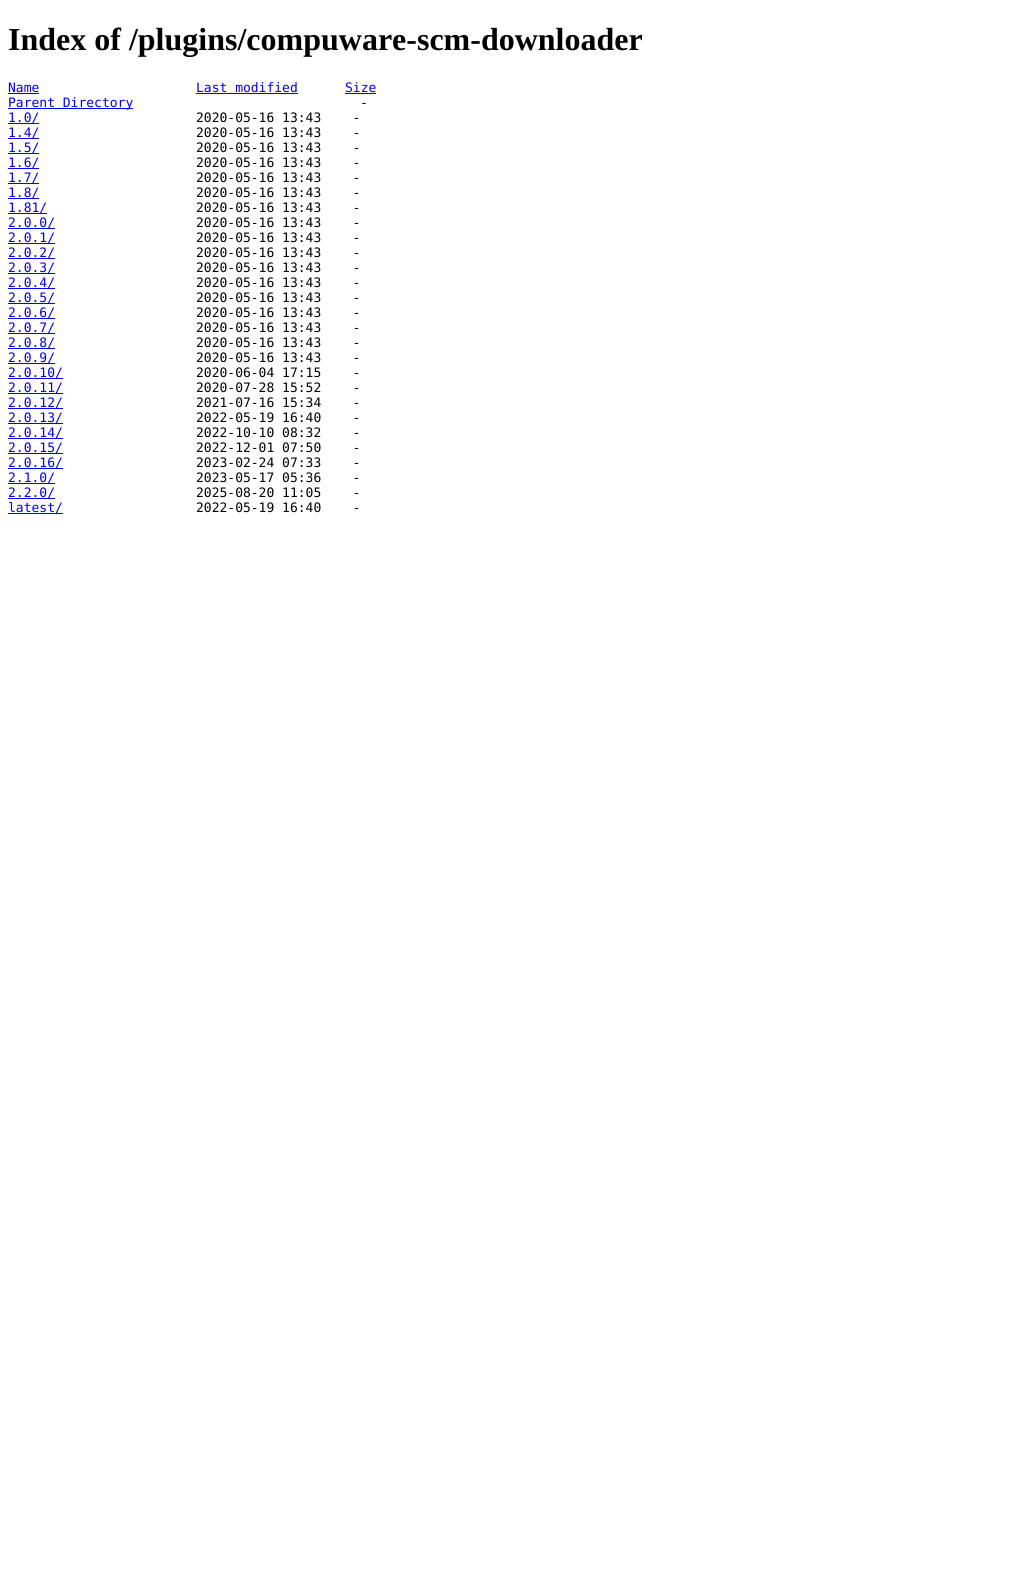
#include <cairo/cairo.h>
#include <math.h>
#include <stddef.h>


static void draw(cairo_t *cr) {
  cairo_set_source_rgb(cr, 1, 1, 1);
  cairo_paint(cr);
  cairo_set_source_rgb(cr, 0, 0, 238 / 255.0);
  cairo_rectangle(cr, 8, 93, 31, 1);
  cairo_fill(cr);
  cairo_rectangle(cr, 196, 93, 102, 1);
  cairo_fill(cr);
  cairo_rectangle(cr, 345, 93, 31, 1);
  cairo_fill(cr);
  cairo_rectangle(cr, 8, 108, 125, 1);
  cairo_fill(cr);
  cairo_rectangle(cr, 8, 123, 31, 1);
  cairo_fill(cr);
  cairo_rectangle(cr, 8, 138, 31, 1);
  cairo_fill(cr);
  cairo_rectangle(cr, 8, 153, 31, 1);
  cairo_fill(cr);
  cairo_rectangle(cr, 8, 168, 31, 1);
  cairo_fill(cr);
  cairo_rectangle(cr, 8, 183, 31, 1);
  cairo_fill(cr);
  cairo_rectangle(cr, 8, 198, 31, 1);
  cairo_fill(cr);
  cairo_rectangle(cr, 8, 213, 39, 1);
  cairo_fill(cr);
  cairo_rectangle(cr, 8, 228, 47, 1);
  cairo_fill(cr);
  cairo_rectangle(cr, 8, 243, 47, 1);
  cairo_fill(cr);
  cairo_rectangle(cr, 8, 258, 47, 1);
  cairo_fill(cr);
  cairo_rectangle(cr, 8, 273, 47, 1);
  cairo_fill(cr);
  cairo_rectangle(cr, 8, 288, 47, 1);
  cairo_fill(cr);
  cairo_rectangle(cr, 8, 303, 47, 1);
  cairo_fill(cr);
  cairo_rectangle(cr, 8, 318, 47, 1);
  cairo_fill(cr);
  cairo_rectangle(cr, 8, 333, 47, 1);
  cairo_fill(cr);
  cairo_rectangle(cr, 8, 348, 47, 1);
  cairo_fill(cr);
  cairo_rectangle(cr, 8, 363, 47, 1);
  cairo_fill(cr);
  cairo_rectangle(cr, 8, 378, 55, 1);
  cairo_fill(cr);
  cairo_rectangle(cr, 8, 393, 55, 1);
  cairo_fill(cr);
  cairo_rectangle(cr, 8, 408, 55, 1);
  cairo_fill(cr);
  cairo_rectangle(cr, 8, 423, 55, 1);
  cairo_fill(cr);
  cairo_rectangle(cr, 8, 438, 55, 1);
  cairo_fill(cr);
  cairo_rectangle(cr, 8, 453, 55, 1);
  cairo_fill(cr);
  cairo_rectangle(cr, 8, 468, 55, 1);
  cairo_fill(cr);
  cairo_rectangle(cr, 8, 483, 47, 1);
  cairo_fill(cr);
  cairo_rectangle(cr, 8, 498, 47, 1);
  cairo_fill(cr);
  cairo_rectangle(cr, 8, 513, 55, 1);
  cairo_fill(cr);
  cairo_select_font_face(cr, "Liberation Serif", CAIRO_FONT_SLANT_NORMAL, CAIRO_FONT_WEIGHT_BOLD);
  cairo_set_font_size(cr, 32);
  cairo_set_source_rgb(cr, 0, 0, 0);
  cairo_move_to(cr, 8, 50);
  cairo_show_text(cr, "Index of /plugins/compuware-scm-downloader");
  cairo_select_font_face(cr, "DejaVu Sans Mono", CAIRO_FONT_SLANT_NORMAL, CAIRO_FONT_WEIGHT_NORMAL);
  cairo_set_font_size(cr, 13);
  cairo_set_source_rgb(cr, 0, 0, 238 / 255.0);
  cairo_move_to(cr, 8, 92);
  cairo_show_text(cr, "Name");
  cairo_move_to(cr, 196, 92);
  cairo_show_text(cr, "Last modified");
  cairo_move_to(cr, 345, 92);
  cairo_show_text(cr, "Size");
  cairo_move_to(cr, 8, 107);
  cairo_show_text(cr, "Parent Directory");
  cairo_set_source_rgb(cr, 0, 0, 0);
  cairo_move_to(cr, 360, 107);
  cairo_show_text(cr, "-");
  cairo_set_source_rgb(cr, 0, 0, 238 / 255.0);
  cairo_move_to(cr, 8, 122);
  cairo_show_text(cr, "1.0/");
  cairo_set_source_rgb(cr, 0, 0, 0);
  cairo_move_to(cr, 196, 122);
  cairo_show_text(cr, "2020-05-16 13:43    -");
  cairo_set_source_rgb(cr, 0, 0, 238 / 255.0);
  cairo_move_to(cr, 8, 137);
  cairo_show_text(cr, "1.4/");
  cairo_set_source_rgb(cr, 0, 0, 0);
  cairo_move_to(cr, 196, 137);
  cairo_show_text(cr, "2020-05-16 13:43    -");
  cairo_set_source_rgb(cr, 0, 0, 238 / 255.0);
  cairo_move_to(cr, 8, 152);
  cairo_show_text(cr, "1.5/");
  cairo_set_source_rgb(cr, 0, 0, 0);
  cairo_move_to(cr, 196, 152);
  cairo_show_text(cr, "2020-05-16 13:43    -");
  cairo_set_source_rgb(cr, 0, 0, 238 / 255.0);
  cairo_move_to(cr, 8, 167);
  cairo_show_text(cr, "1.6/");
  cairo_set_source_rgb(cr, 0, 0, 0);
  cairo_move_to(cr, 196, 167);
  cairo_show_text(cr, "2020-05-16 13:43    -");
  cairo_set_source_rgb(cr, 0, 0, 238 / 255.0);
  cairo_move_to(cr, 8, 182);
  cairo_show_text(cr, "1.7/");
  cairo_set_source_rgb(cr, 0, 0, 0);
  cairo_move_to(cr, 196, 182);
  cairo_show_text(cr, "2020-05-16 13:43    -");
  cairo_set_source_rgb(cr, 0, 0, 238 / 255.0);
  cairo_move_to(cr, 8, 197);
  cairo_show_text(cr, "1.8/");
  cairo_set_source_rgb(cr, 0, 0, 0);
  cairo_move_to(cr, 196, 197);
  cairo_show_text(cr, "2020-05-16 13:43    -");
  cairo_set_source_rgb(cr, 0, 0, 238 / 255.0);
  cairo_move_to(cr, 8, 212);
  cairo_show_text(cr, "1.81/");
  cairo_set_source_rgb(cr, 0, 0, 0);
  cairo_move_to(cr, 196, 212);
  cairo_show_text(cr, "2020-05-16 13:43    -");
  cairo_set_source_rgb(cr, 0, 0, 238 / 255.0);
  cairo_move_to(cr, 8, 227);
  cairo_show_text(cr, "2.0.0/");
  cairo_set_source_rgb(cr, 0, 0, 0);
  cairo_move_to(cr, 196, 227);
  cairo_show_text(cr, "2020-05-16 13:43    -");
  cairo_set_source_rgb(cr, 0, 0, 238 / 255.0);
  cairo_move_to(cr, 8, 242);
  cairo_show_text(cr, "2.0.1/");
  cairo_set_source_rgb(cr, 0, 0, 0);
  cairo_move_to(cr, 196, 242);
  cairo_show_text(cr, "2020-05-16 13:43    -");
  cairo_set_source_rgb(cr, 0, 0, 238 / 255.0);
  cairo_move_to(cr, 8, 257);
  cairo_show_text(cr, "2.0.2/");
  cairo_set_source_rgb(cr, 0, 0, 0);
  cairo_move_to(cr, 196, 257);
  cairo_show_text(cr, "2020-05-16 13:43    -");
  cairo_set_source_rgb(cr, 0, 0, 238 / 255.0);
  cairo_move_to(cr, 8, 272);
  cairo_show_text(cr, "2.0.3/");
  cairo_set_source_rgb(cr, 0, 0, 0);
  cairo_move_to(cr, 196, 272);
  cairo_show_text(cr, "2020-05-16 13:43    -");
  cairo_set_source_rgb(cr, 0, 0, 238 / 255.0);
  cairo_move_to(cr, 8, 287);
  cairo_show_text(cr, "2.0.4/");
  cairo_set_source_rgb(cr, 0, 0, 0);
  cairo_move_to(cr, 196, 287);
  cairo_show_text(cr, "2020-05-16 13:43    -");
  cairo_set_source_rgb(cr, 0, 0, 238 / 255.0);
  cairo_move_to(cr, 8, 302);
  cairo_show_text(cr, "2.0.5/");
  cairo_set_source_rgb(cr, 0, 0, 0);
  cairo_move_to(cr, 196, 302);
  cairo_show_text(cr, "2020-05-16 13:43    -");
  cairo_set_source_rgb(cr, 0, 0, 238 / 255.0);
  cairo_move_to(cr, 8, 317);
  cairo_show_text(cr, "2.0.6/");
  cairo_set_source_rgb(cr, 0, 0, 0);
  cairo_move_to(cr, 196, 317);
  cairo_show_text(cr, "2020-05-16 13:43    -");
  cairo_set_source_rgb(cr, 0, 0, 238 / 255.0);
  cairo_move_to(cr, 8, 332);
  cairo_show_text(cr, "2.0.7/");
  cairo_set_source_rgb(cr, 0, 0, 0);
  cairo_move_to(cr, 196, 332);
  cairo_show_text(cr, "2020-05-16 13:43    -");
  cairo_set_source_rgb(cr, 0, 0, 238 / 255.0);
  cairo_move_to(cr, 8, 347);
  cairo_show_text(cr, "2.0.8/");
  cairo_set_source_rgb(cr, 0, 0, 0);
  cairo_move_to(cr, 196, 347);
  cairo_show_text(cr, "2020-05-16 13:43    -");
  cairo_set_source_rgb(cr, 0, 0, 238 / 255.0);
  cairo_move_to(cr, 8, 362);
  cairo_show_text(cr, "2.0.9/");
  cairo_set_source_rgb(cr, 0, 0, 0);
  cairo_move_to(cr, 196, 362);
  cairo_show_text(cr, "2020-05-16 13:43    -");
  cairo_set_source_rgb(cr, 0, 0, 238 / 255.0);
  cairo_move_to(cr, 8, 377);
  cairo_show_text(cr, "2.0.10/");
  cairo_set_source_rgb(cr, 0, 0, 0);
  cairo_move_to(cr, 196, 377);
  cairo_show_text(cr, "2020-06-04 17:15    -");
  cairo_set_source_rgb(cr, 0, 0, 238 / 255.0);
  cairo_move_to(cr, 8, 392);
  cairo_show_text(cr, "2.0.11/");
  cairo_set_source_rgb(cr, 0, 0, 0);
  cairo_move_to(cr, 196, 392);
  cairo_show_text(cr, "2020-07-28 15:52    -");
  cairo_set_source_rgb(cr, 0, 0, 238 / 255.0);
  cairo_move_to(cr, 8, 407);
  cairo_show_text(cr, "2.0.12/");
  cairo_set_source_rgb(cr, 0, 0, 0);
  cairo_move_to(cr, 196, 407);
  cairo_show_text(cr, "2021-07-16 15:34    -");
  cairo_set_source_rgb(cr, 0, 0, 238 / 255.0);
  cairo_move_to(cr, 8, 422);
  cairo_show_text(cr, "2.0.13/");
  cairo_set_source_rgb(cr, 0, 0, 0);
  cairo_move_to(cr, 196, 422);
  cairo_show_text(cr, "2022-05-19 16:40    -");
  cairo_set_source_rgb(cr, 0, 0, 238 / 255.0);
  cairo_move_to(cr, 8, 437);
  cairo_show_text(cr, "2.0.14/");
  cairo_set_source_rgb(cr, 0, 0, 0);
  cairo_move_to(cr, 196, 437);
  cairo_show_text(cr, "2022-10-10 08:32    -");
  cairo_set_source_rgb(cr, 0, 0, 238 / 255.0);
  cairo_move_to(cr, 8, 452);
  cairo_show_text(cr, "2.0.15/");
  cairo_set_source_rgb(cr, 0, 0, 0);
  cairo_move_to(cr, 196, 452);
  cairo_show_text(cr, "2022-12-01 07:50    -");
  cairo_set_source_rgb(cr, 0, 0, 238 / 255.0);
  cairo_move_to(cr, 8, 467);
  cairo_show_text(cr, "2.0.16/");
  cairo_set_source_rgb(cr, 0, 0, 0);
  cairo_move_to(cr, 196, 467);
  cairo_show_text(cr, "2023-02-24 07:33    -");
  cairo_set_source_rgb(cr, 0, 0, 238 / 255.0);
  cairo_move_to(cr, 8, 482);
  cairo_show_text(cr, "2.1.0/");
  cairo_set_source_rgb(cr, 0, 0, 0);
  cairo_move_to(cr, 196, 482);
  cairo_show_text(cr, "2023-05-17 05:36    -");
  cairo_set_source_rgb(cr, 0, 0, 238 / 255.0);
  cairo_move_to(cr, 8, 497);
  cairo_show_text(cr, "2.2.0/");
  cairo_set_source_rgb(cr, 0, 0, 0);
  cairo_move_to(cr, 196, 497);
  cairo_show_text(cr, "2025-08-20 11:05    -");
  cairo_set_source_rgb(cr, 0, 0, 238 / 255.0);
  cairo_move_to(cr, 8, 512);
  cairo_show_text(cr, "latest/");
  cairo_set_source_rgb(cr, 0, 0, 0);
  cairo_move_to(cr, 196, 512);
  cairo_show_text(cr, "2022-05-19 16:40    -");
}

int main(void) {
  cairo_surface_t *surface = cairo_image_surface_create(CAIRO_FORMAT_RGB24, 1021, 1569);
  cairo_t *cr = cairo_create(surface);
  cairo_font_options_t *options = cairo_font_options_create();
  cairo_font_options_set_hint_metrics(options, CAIRO_HINT_METRICS_OFF);
  cairo_font_options_set_hint_style(options, CAIRO_HINT_STYLE_NONE);
  cairo_set_font_options(cr, options);
  cairo_set_miter_limit(cr, 4);
  draw(cr);
  cairo_surface_write_to_png(surface, "out.png");
  cairo_font_options_destroy(options);
  cairo_destroy(cr);
  cairo_surface_destroy(surface);
  return 0;
}
